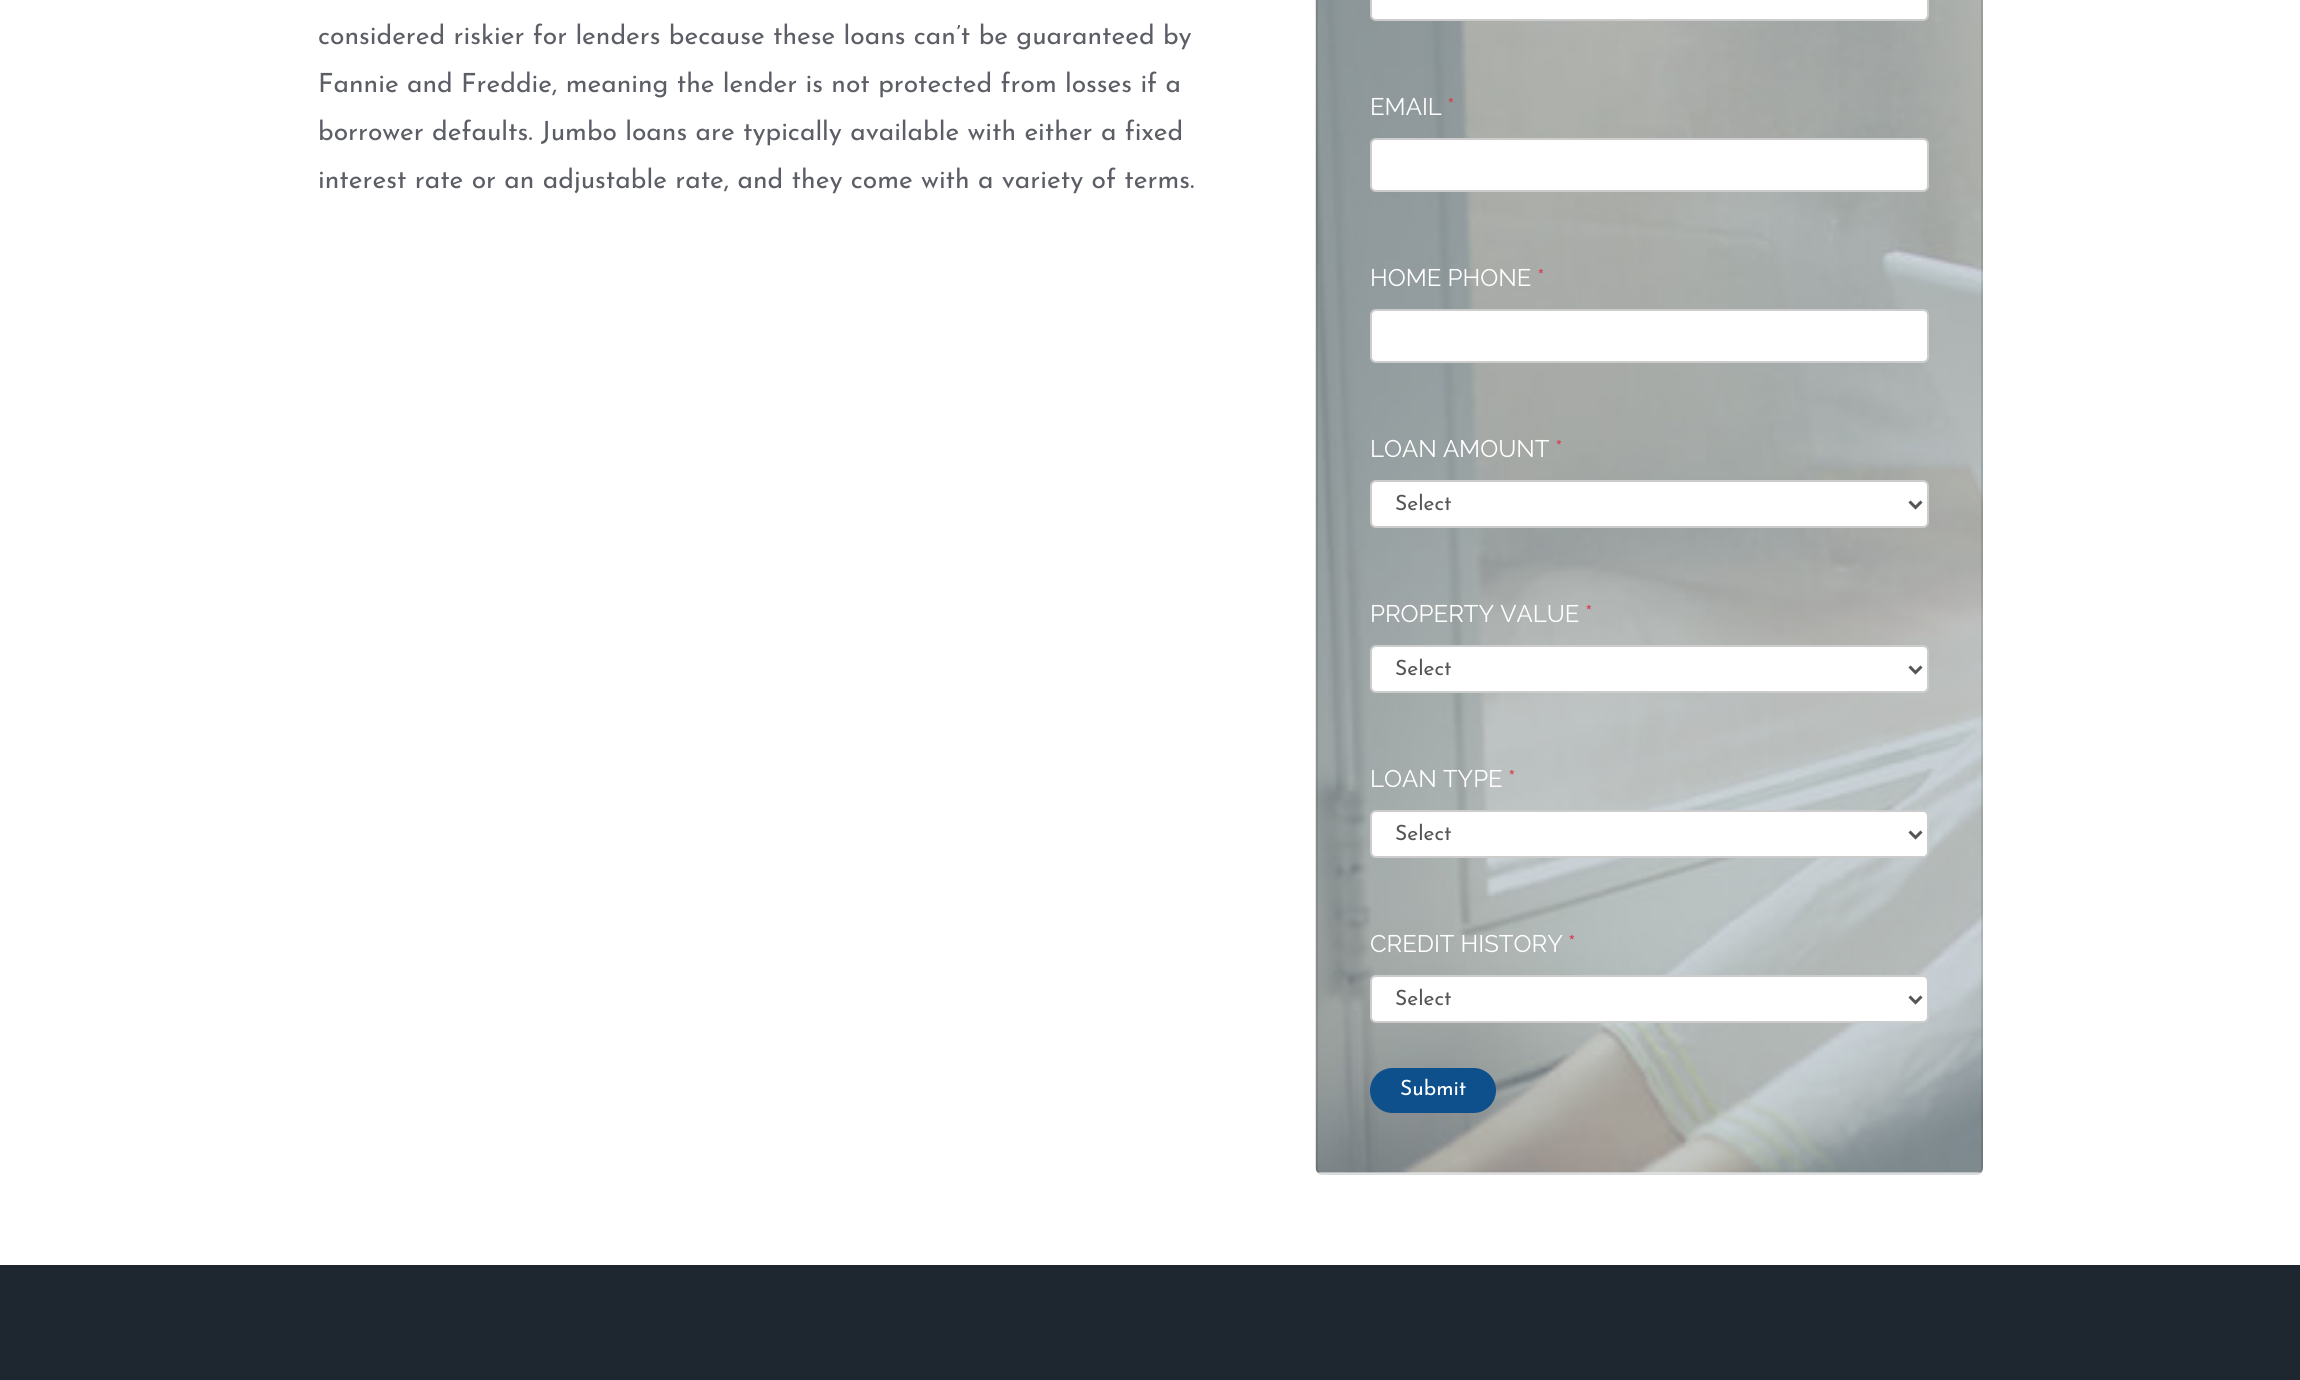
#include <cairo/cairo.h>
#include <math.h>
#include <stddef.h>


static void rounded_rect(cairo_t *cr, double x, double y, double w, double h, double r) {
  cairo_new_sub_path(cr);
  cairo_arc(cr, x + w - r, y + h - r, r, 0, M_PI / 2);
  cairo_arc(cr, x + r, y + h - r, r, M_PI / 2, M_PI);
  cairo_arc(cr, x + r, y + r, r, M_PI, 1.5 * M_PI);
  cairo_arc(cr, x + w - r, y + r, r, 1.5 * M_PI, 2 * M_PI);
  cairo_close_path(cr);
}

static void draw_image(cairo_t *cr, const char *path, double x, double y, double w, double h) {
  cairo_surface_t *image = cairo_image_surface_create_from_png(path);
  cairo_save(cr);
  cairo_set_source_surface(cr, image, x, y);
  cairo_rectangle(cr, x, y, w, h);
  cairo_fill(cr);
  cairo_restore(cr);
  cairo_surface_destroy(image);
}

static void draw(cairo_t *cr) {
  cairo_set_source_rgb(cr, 1, 1, 1);
  cairo_paint(cr);
  cairo_set_source_rgb(cr, 248 / 255.0, 249 / 255.0, 250 / 255.0);
  rounded_rect(cr, 1316, -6, 667, 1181, 6);
  cairo_fill(cr);
  draw_image(cr, "images/1.png", 1315, 0, 668, 1173);
  rounded_rect(cr, 1317, -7, 665, 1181, 5);
  cairo_set_source_rgba(cr, 0, 0, 0, 0.12);
  cairo_stroke(cr);
  cairo_set_source_rgb(cr, 1, 1, 1);
  rounded_rect(cr, 1371, -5, 557, 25, 5);
  cairo_fill(cr);
  rounded_rect(cr, 1371, -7, 557, 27, 5);
  cairo_set_source_rgb(cr, 204 / 255.0, 204 / 255.0, 204 / 255.0);
  cairo_stroke(cr);
  cairo_set_source_rgb(cr, 1, 1, 1);
  rounded_rect(cr, 1371, 139, 557, 52, 5);
  cairo_fill_preserve(cr);
  cairo_set_source_rgb(cr, 204 / 255.0, 204 / 255.0, 204 / 255.0);
  cairo_stroke(cr);
  cairo_set_source_rgb(cr, 1, 1, 1);
  rounded_rect(cr, 1371, 310, 557, 52, 5);
  cairo_fill_preserve(cr);
  cairo_set_source_rgb(cr, 204 / 255.0, 204 / 255.0, 204 / 255.0);
  cairo_stroke(cr);
  cairo_set_source_rgb(cr, 1, 1, 1);
  rounded_rect(cr, 1371, 481, 557, 46, 5);
  cairo_fill_preserve(cr);
  cairo_set_source_rgb(cr, 204 / 255.0, 204 / 255.0, 204 / 255.0);
  cairo_stroke(cr);
  cairo_new_path(cr);
  cairo_move_to(cr, 1909.5, 501.5);
  cairo_line_to(cr, 1915.5, 507.5);
  cairo_line_to(cr, 1921.5, 501.5);
  cairo_set_source_rgb(cr, 85 / 255.0, 85 / 255.0, 85 / 255.0);
  cairo_set_line_width(cr, 3);
  cairo_stroke(cr);
  cairo_set_source_rgb(cr, 1, 1, 1);
  rounded_rect(cr, 1371, 646, 557, 46, 5);
  cairo_fill_preserve(cr);
  cairo_set_source_rgb(cr, 204 / 255.0, 204 / 255.0, 204 / 255.0);
  cairo_set_line_width(cr, 2);
  cairo_stroke(cr);
  cairo_new_path(cr);
  cairo_move_to(cr, 1909.5, 666.5);
  cairo_line_to(cr, 1915.5, 672.5);
  cairo_line_to(cr, 1921.5, 666.5);
  cairo_set_source_rgb(cr, 85 / 255.0, 85 / 255.0, 85 / 255.0);
  cairo_set_line_width(cr, 3);
  cairo_stroke(cr);
  cairo_set_source_rgb(cr, 1, 1, 1);
  rounded_rect(cr, 1371, 811, 557, 46, 5);
  cairo_fill_preserve(cr);
  cairo_set_source_rgb(cr, 204 / 255.0, 204 / 255.0, 204 / 255.0);
  cairo_set_line_width(cr, 2);
  cairo_stroke(cr);
  cairo_new_path(cr);
  cairo_move_to(cr, 1909.5, 831.5);
  cairo_line_to(cr, 1915.5, 837.5);
  cairo_line_to(cr, 1921.5, 831.5);
  cairo_set_source_rgb(cr, 85 / 255.0, 85 / 255.0, 85 / 255.0);
  cairo_set_line_width(cr, 3);
  cairo_stroke(cr);
  cairo_set_source_rgb(cr, 1, 1, 1);
  rounded_rect(cr, 1371, 976, 557, 46, 5);
  cairo_fill_preserve(cr);
  cairo_set_source_rgb(cr, 204 / 255.0, 204 / 255.0, 204 / 255.0);
  cairo_set_line_width(cr, 2);
  cairo_stroke(cr);
  cairo_new_path(cr);
  cairo_move_to(cr, 1909.5, 996.5);
  cairo_line_to(cr, 1915.5, 1002.5);
  cairo_line_to(cr, 1921.5, 996.5);
  cairo_set_source_rgb(cr, 85 / 255.0, 85 / 255.0, 85 / 255.0);
  cairo_set_line_width(cr, 3);
  cairo_stroke(cr);
  cairo_set_source_rgb(cr, 14 / 255.0, 80 / 255.0, 139 / 255.0);
  rounded_rect(cr, 1370, 1068, 126, 45, 22.5);
  cairo_fill(cr);
  cairo_set_source_rgb(cr, 30 / 255.0, 38 / 255.0, 47 / 255.0);
  cairo_rectangle(cr, 0, 1265, 2300, 115);
  cairo_fill(cr);
  cairo_select_font_face(cr, "Josefin Sans", CAIRO_FONT_SLANT_NORMAL, CAIRO_FONT_WEIGHT_NORMAL);
  cairo_set_font_size(cr, 26.4);
  cairo_set_source_rgb(cr, 92 / 255.0, 94 / 255.0, 102 / 255.0);
  cairo_move_to(cr, 318, 44);
  cairo_show_text(cr, "considered riskier for lenders because these loans can’t be guaranteed by");
  cairo_move_to(cr, 318, 92);
  cairo_show_text(cr, "Fannie and Freddie, meaning the lender is not protected from losses if a");
  cairo_move_to(cr, 318, 140);
  cairo_show_text(cr, "borrower defaults. Jumbo loans are typically available with either a fixed");
  cairo_move_to(cr, 318, 188);
  cairo_show_text(cr, "interest rate or an adjustable rate, and they come with a variety of terms.");
  cairo_select_font_face(cr, "Raleway", CAIRO_FONT_SLANT_NORMAL, CAIRO_FONT_WEIGHT_NORMAL);
  cairo_set_font_size(cr, 24);
  cairo_set_source_rgb(cr, 1, 1, 1);
  cairo_move_to(cr, 1370, 115);
  cairo_show_text(cr, "EMAIL");
  cairo_set_source_rgb(cr, 220 / 255.0, 53 / 255.0, 69 / 255.0);
  cairo_move_to(cr, 1447, 115);
  cairo_show_text(cr, "*");
  cairo_set_source_rgb(cr, 1, 1, 1);
  cairo_move_to(cr, 1370, 286);
  cairo_show_text(cr, "HOME PHONE");
  cairo_set_source_rgb(cr, 220 / 255.0, 53 / 255.0, 69 / 255.0);
  cairo_move_to(cr, 1537, 286);
  cairo_show_text(cr, "*");
  cairo_set_source_rgb(cr, 1, 1, 1);
  cairo_move_to(cr, 1370, 457);
  cairo_show_text(cr, "LOAN AMOUNT");
  cairo_set_source_rgb(cr, 220 / 255.0, 53 / 255.0, 69 / 255.0);
  cairo_move_to(cr, 1555, 457);
  cairo_show_text(cr, "*");
  cairo_select_font_face(cr, "Josefin Sans", CAIRO_FONT_SLANT_NORMAL, CAIRO_FONT_WEIGHT_NORMAL);
  cairo_set_font_size(cr, 21);
  cairo_set_source_rgb(cr, 85 / 255.0, 85 / 255.0, 85 / 255.0);
  cairo_move_to(cr, 1395, 510);
  cairo_show_text(cr, "Select");
  cairo_select_font_face(cr, "Raleway", CAIRO_FONT_SLANT_NORMAL, CAIRO_FONT_WEIGHT_NORMAL);
  cairo_set_font_size(cr, 24);
  cairo_set_source_rgb(cr, 1, 1, 1);
  cairo_move_to(cr, 1370, 622);
  cairo_show_text(cr, "PROPERTY VALUE");
  cairo_set_source_rgb(cr, 220 / 255.0, 53 / 255.0, 69 / 255.0);
  cairo_move_to(cr, 1585, 622);
  cairo_show_text(cr, "*");
  cairo_select_font_face(cr, "Josefin Sans", CAIRO_FONT_SLANT_NORMAL, CAIRO_FONT_WEIGHT_NORMAL);
  cairo_set_font_size(cr, 21);
  cairo_set_source_rgb(cr, 85 / 255.0, 85 / 255.0, 85 / 255.0);
  cairo_move_to(cr, 1395, 675);
  cairo_show_text(cr, "Select");
  cairo_select_font_face(cr, "Raleway", CAIRO_FONT_SLANT_NORMAL, CAIRO_FONT_WEIGHT_NORMAL);
  cairo_set_font_size(cr, 24);
  cairo_set_source_rgb(cr, 1, 1, 1);
  cairo_move_to(cr, 1370, 787);
  cairo_show_text(cr, "LOAN TYPE");
  cairo_set_source_rgb(cr, 220 / 255.0, 53 / 255.0, 69 / 255.0);
  cairo_move_to(cr, 1508, 787);
  cairo_show_text(cr, "*");
  cairo_select_font_face(cr, "Josefin Sans", CAIRO_FONT_SLANT_NORMAL, CAIRO_FONT_WEIGHT_NORMAL);
  cairo_set_font_size(cr, 21);
  cairo_set_source_rgb(cr, 85 / 255.0, 85 / 255.0, 85 / 255.0);
  cairo_move_to(cr, 1395, 840);
  cairo_show_text(cr, "Select");
  cairo_select_font_face(cr, "Raleway", CAIRO_FONT_SLANT_NORMAL, CAIRO_FONT_WEIGHT_NORMAL);
  cairo_set_font_size(cr, 24);
  cairo_set_source_rgb(cr, 1, 1, 1);
  cairo_move_to(cr, 1370, 952);
  cairo_show_text(cr, "CREDIT HISTORY");
  cairo_set_source_rgb(cr, 220 / 255.0, 53 / 255.0, 69 / 255.0);
  cairo_move_to(cr, 1568, 952);
  cairo_show_text(cr, "*");
  cairo_select_font_face(cr, "Josefin Sans", CAIRO_FONT_SLANT_NORMAL, CAIRO_FONT_WEIGHT_NORMAL);
  cairo_set_font_size(cr, 21);
  cairo_set_source_rgb(cr, 85 / 255.0, 85 / 255.0, 85 / 255.0);
  cairo_move_to(cr, 1395, 1005);
  cairo_show_text(cr, "Select");
  cairo_set_source_rgb(cr, 1, 1, 1);
  cairo_move_to(cr, 1400, 1095);
  cairo_show_text(cr, "Submit");
}

int main(void) {
  cairo_surface_t *surface = cairo_image_surface_create(CAIRO_FORMAT_RGB24, 2300, 1380);
  cairo_t *cr = cairo_create(surface);
  cairo_font_options_t *options = cairo_font_options_create();
  cairo_font_options_set_hint_metrics(options, CAIRO_HINT_METRICS_OFF);
  cairo_font_options_set_hint_style(options, CAIRO_HINT_STYLE_NONE);
  cairo_set_font_options(cr, options);
  cairo_set_miter_limit(cr, 4);
  draw(cr);
  cairo_surface_write_to_png(surface, "out.png");
  cairo_font_options_destroy(options);
  cairo_destroy(cr);
  cairo_surface_destroy(surface);
  return 0;
}
